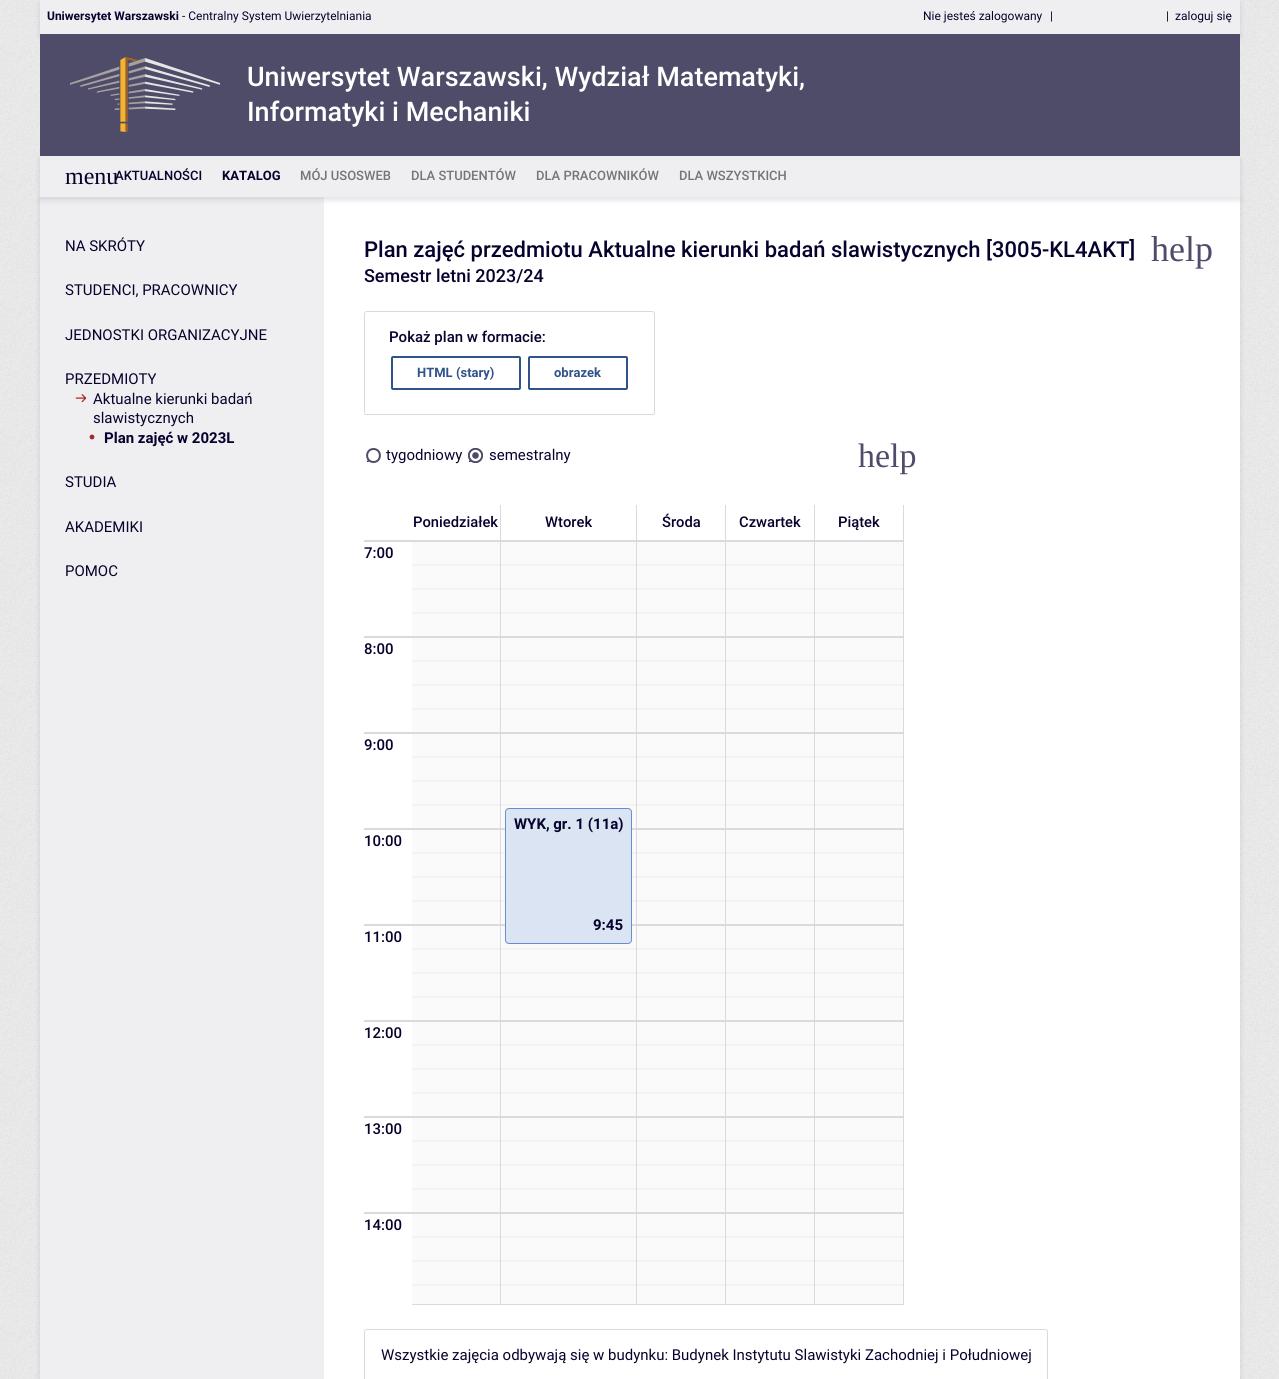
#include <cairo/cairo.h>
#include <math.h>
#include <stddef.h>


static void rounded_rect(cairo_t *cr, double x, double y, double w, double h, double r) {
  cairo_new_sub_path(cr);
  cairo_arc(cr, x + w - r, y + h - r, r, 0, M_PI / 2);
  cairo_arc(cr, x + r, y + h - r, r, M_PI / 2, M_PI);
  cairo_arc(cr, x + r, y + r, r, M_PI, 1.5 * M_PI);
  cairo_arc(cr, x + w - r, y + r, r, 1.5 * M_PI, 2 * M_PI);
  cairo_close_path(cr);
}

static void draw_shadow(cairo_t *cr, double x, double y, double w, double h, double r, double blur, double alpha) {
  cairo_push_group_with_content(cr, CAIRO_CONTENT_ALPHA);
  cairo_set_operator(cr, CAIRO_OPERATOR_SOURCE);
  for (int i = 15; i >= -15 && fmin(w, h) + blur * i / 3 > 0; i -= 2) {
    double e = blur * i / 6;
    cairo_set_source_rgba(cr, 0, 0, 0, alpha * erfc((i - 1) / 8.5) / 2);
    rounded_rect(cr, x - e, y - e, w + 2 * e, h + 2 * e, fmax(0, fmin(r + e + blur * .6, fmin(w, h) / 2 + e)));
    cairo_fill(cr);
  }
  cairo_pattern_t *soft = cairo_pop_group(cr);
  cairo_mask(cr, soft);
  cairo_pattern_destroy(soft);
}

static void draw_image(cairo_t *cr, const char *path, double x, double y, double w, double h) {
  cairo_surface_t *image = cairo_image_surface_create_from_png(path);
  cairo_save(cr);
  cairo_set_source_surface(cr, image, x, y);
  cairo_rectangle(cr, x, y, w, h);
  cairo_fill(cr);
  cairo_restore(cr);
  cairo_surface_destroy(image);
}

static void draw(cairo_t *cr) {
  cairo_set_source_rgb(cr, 1, 1, 1);
  cairo_paint(cr);
  draw_image(cr, "images/1.png", 0, 0, 1279, 1379);
  cairo_set_source_rgb(cr, 6 / 255.0, 6 / 255.0, 51 / 255.0);
  draw_shadow(cr, 40, 3, 1200, 34, 0, 3, 0.12);
  cairo_set_source_rgb(cr, 239 / 255.0, 239 / 255.0, 241 / 255.0);
  cairo_rectangle(cr, 40, 0, 1200, 34);
  cairo_fill(cr);
  cairo_set_source_rgb(cr, 79 / 255.0, 76 / 255.0, 106 / 255.0);
  cairo_rectangle(cr, 40, 34, 1200, 122);
  cairo_fill(cr);
  draw_image(cr, "images/2.png", 70, 57, 150, 75);
  cairo_set_source_rgb(cr, 6 / 255.0, 6 / 255.0, 51 / 255.0);
  draw_shadow(cr, 40, 200, 1200, 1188, 0, 3, 0.12);
  cairo_set_source_rgb(cr, 1, 1, 1);
  cairo_rectangle(cr, 324, 197, 916, 1182);
  cairo_fill(cr);
  cairo_set_source_rgb(cr, 239 / 255.0, 239 / 255.0, 241 / 255.0);
  cairo_rectangle(cr, 40, 197, 284, 1182);
  cairo_fill(cr);
  cairo_set_source_rgb(cr, 6 / 255.0, 6 / 255.0, 51 / 255.0);
  draw_shadow(cr, 40, 159, 1200, 41, 0, 3, 0.12);
  cairo_set_source_rgb(cr, 239 / 255.0, 239 / 255.0, 241 / 255.0);
  cairo_rectangle(cr, 40, 156, 1200, 41);
  cairo_fill(cr);
  draw_image(cr, "images/3.png", 75, 394, 12, 9);
  cairo_set_source_rgb(cr, 166 / 255.0, 41 / 255.0, 41 / 255.0);
  cairo_arc(cr, 92, 437, 2.4, 0, 2 * M_PI);
  cairo_fill(cr);
  cairo_new_path(cr);
  cairo_move_to(cr, 367, 311.5);
  cairo_line_to(cr, 652, 311.5);
  cairo_curve_to(cr, 653.5, 311.5, 654.5, 312.5, 654.5, 314);
  cairo_line_to(cr, 654.5, 413);
  cairo_curve_to(cr, 654.5, 414, 654, 414.5, 653, 414.5);
  cairo_line_to(cr, 366, 414.5);
  cairo_curve_to(cr, 365, 414.5, 364.5, 414, 364.5, 413);
  cairo_line_to(cr, 364.5, 314);
  cairo_curve_to(cr, 364.5, 312.5, 365.5, 311.5, 367, 311.5);
  cairo_close_path(cr);
  cairo_set_source_rgb(cr, 218 / 255.0, 218 / 255.0, 222 / 255.0);
  cairo_set_line_width(cr, 1);
  cairo_stroke(cr);
  rounded_rect(cr, 392, 357, 128, 32, 1);
  cairo_set_source_rgb(cr, 48 / 255.0, 83 / 255.0, 138 / 255.0);
  cairo_set_line_width(cr, 2);
  cairo_stroke(cr);
  rounded_rect(cr, 529, 357, 98, 32, 1);
  cairo_stroke(cr);
  cairo_new_path(cr);
  cairo_move_to(cr, 373.5, 449);
  cairo_curve_to(cr, 382, 449, 382, 462, 373.5, 462);
  cairo_curve_to(cr, 365, 462, 365, 449, 373.5, 449);
  cairo_close_path(cr);
  cairo_set_source_rgb(cr, 79 / 255.0, 76 / 255.0, 106 / 255.0);
  cairo_set_line_cap(cr, CAIRO_LINE_CAP_ROUND);
  cairo_stroke(cr);
  draw_image(cr, "images/4.png", 468, 448, 15, 15);
  cairo_set_source_rgb(cr, 218 / 255.0, 218 / 255.0, 222 / 255.0);
  cairo_rectangle(cr, 500, 505, 1, 800);
  cairo_fill(cr);
  cairo_rectangle(cr, 636, 505, 1, 800);
  cairo_fill(cr);
  cairo_rectangle(cr, 725, 505, 1, 800);
  cairo_fill(cr);
  cairo_rectangle(cr, 814, 505, 1, 800);
  cairo_fill(cr);
  cairo_rectangle(cr, 903, 505, 1, 800);
  cairo_fill(cr);
  cairo_rectangle(cr, 364, 540, 540, 2);
  cairo_fill(cr);
  cairo_set_source_rgb(cr, 250 / 255.0, 250 / 255.0, 250 / 255.0);
  cairo_rectangle(cr, 412, 542, 88, 762);
  cairo_fill(cr);
  cairo_rectangle(cr, 501, 542, 135, 762);
  cairo_fill(cr);
  cairo_rectangle(cr, 637, 542, 88, 762);
  cairo_fill(cr);
  cairo_rectangle(cr, 726, 542, 88, 762);
  cairo_fill(cr);
  cairo_rectangle(cr, 815, 542, 88, 762);
  cairo_fill(cr);
  cairo_set_source_rgba(cr, 218 / 255.0, 218 / 255.0, 222 / 255.0, 0.2);
  cairo_rectangle(cr, 412, 564, 492, 2);
  cairo_fill(cr);
  cairo_rectangle(cr, 412, 588, 492, 2);
  cairo_fill(cr);
  cairo_rectangle(cr, 412, 612, 492, 2);
  cairo_fill(cr);
  cairo_set_source_rgb(cr, 218 / 255.0, 218 / 255.0, 222 / 255.0);
  cairo_rectangle(cr, 364, 636, 540, 2);
  cairo_fill(cr);
  cairo_set_source_rgba(cr, 218 / 255.0, 218 / 255.0, 222 / 255.0, 0.2);
  cairo_rectangle(cr, 412, 660, 492, 2);
  cairo_fill(cr);
  cairo_rectangle(cr, 412, 684, 492, 2);
  cairo_fill(cr);
  cairo_rectangle(cr, 412, 708, 492, 2);
  cairo_fill(cr);
  cairo_set_source_rgb(cr, 218 / 255.0, 218 / 255.0, 222 / 255.0);
  cairo_rectangle(cr, 364, 732, 540, 2);
  cairo_fill(cr);
  cairo_set_source_rgba(cr, 218 / 255.0, 218 / 255.0, 222 / 255.0, 0.2);
  cairo_rectangle(cr, 412, 756, 492, 2);
  cairo_fill(cr);
  cairo_rectangle(cr, 412, 780, 492, 2);
  cairo_fill(cr);
  cairo_rectangle(cr, 412, 804, 492, 2);
  cairo_fill(cr);
  cairo_set_source_rgb(cr, 218 / 255.0, 218 / 255.0, 222 / 255.0);
  cairo_rectangle(cr, 364, 828, 540, 2);
  cairo_fill(cr);
  cairo_set_source_rgba(cr, 218 / 255.0, 218 / 255.0, 222 / 255.0, 0.2);
  cairo_rectangle(cr, 412, 852, 492, 2);
  cairo_fill(cr);
  cairo_rectangle(cr, 412, 876, 492, 2);
  cairo_fill(cr);
  cairo_rectangle(cr, 412, 900, 492, 2);
  cairo_fill(cr);
  cairo_set_source_rgb(cr, 218 / 255.0, 218 / 255.0, 222 / 255.0);
  cairo_rectangle(cr, 364, 924, 540, 2);
  cairo_fill(cr);
  cairo_set_source_rgba(cr, 218 / 255.0, 218 / 255.0, 222 / 255.0, 0.2);
  cairo_rectangle(cr, 412, 948, 492, 2);
  cairo_fill(cr);
  cairo_rectangle(cr, 412, 972, 492, 2);
  cairo_fill(cr);
  cairo_rectangle(cr, 412, 996, 492, 2);
  cairo_fill(cr);
  cairo_set_source_rgb(cr, 218 / 255.0, 218 / 255.0, 222 / 255.0);
  cairo_rectangle(cr, 364, 1020, 540, 2);
  cairo_fill(cr);
  cairo_set_source_rgba(cr, 218 / 255.0, 218 / 255.0, 222 / 255.0, 0.2);
  cairo_rectangle(cr, 412, 1044, 492, 2);
  cairo_fill(cr);
  cairo_rectangle(cr, 412, 1068, 492, 2);
  cairo_fill(cr);
  cairo_rectangle(cr, 412, 1092, 492, 2);
  cairo_fill(cr);
  cairo_set_source_rgb(cr, 218 / 255.0, 218 / 255.0, 222 / 255.0);
  cairo_rectangle(cr, 364, 1116, 540, 2);
  cairo_fill(cr);
  cairo_set_source_rgba(cr, 218 / 255.0, 218 / 255.0, 222 / 255.0, 0.2);
  cairo_rectangle(cr, 412, 1140, 492, 2);
  cairo_fill(cr);
  cairo_rectangle(cr, 412, 1164, 492, 2);
  cairo_fill(cr);
  cairo_rectangle(cr, 412, 1188, 492, 2);
  cairo_fill(cr);
  cairo_set_source_rgb(cr, 218 / 255.0, 218 / 255.0, 222 / 255.0);
  cairo_rectangle(cr, 364, 1212, 540, 2);
  cairo_fill(cr);
  cairo_set_source_rgba(cr, 218 / 255.0, 218 / 255.0, 222 / 255.0, 0.2);
  cairo_rectangle(cr, 412, 1236, 492, 2);
  cairo_fill(cr);
  cairo_rectangle(cr, 412, 1260, 492, 2);
  cairo_fill(cr);
  cairo_rectangle(cr, 412, 1284, 492, 2);
  cairo_fill(cr);
  cairo_set_source_rgb(cr, 218 / 255.0, 218 / 255.0, 222 / 255.0);
  cairo_rectangle(cr, 412, 1304, 88, 1);
  cairo_fill(cr);
  cairo_rectangle(cr, 501, 1304, 135, 1);
  cairo_fill(cr);
  cairo_set_source_rgb(cr, 219 / 255.0, 228 / 255.0, 243 / 255.0);
  rounded_rect(cr, 505.5, 808.5, 126, 135, 3.5);
  cairo_fill_preserve(cr);
  cairo_set_source_rgb(cr, 106 / 255.0, 142 / 255.0, 205 / 255.0);
  cairo_set_line_width(cr, 1);
  cairo_set_line_cap(cr, CAIRO_LINE_CAP_BUTT);
  cairo_stroke(cr);
  cairo_set_source_rgb(cr, 218 / 255.0, 218 / 255.0, 222 / 255.0);
  cairo_rectangle(cr, 637, 1304, 88, 1);
  cairo_fill(cr);
  cairo_rectangle(cr, 726, 1304, 88, 1);
  cairo_fill(cr);
  cairo_rectangle(cr, 815, 1304, 88, 1);
  cairo_fill(cr);
  cairo_new_path(cr);
  cairo_move_to(cr, 367, 1329.5);
  cairo_line_to(cr, 1045, 1329.5);
  cairo_curve_to(cr, 1046.5, 1329.5, 1047.5, 1330.5, 1047.5, 1332);
  cairo_line_to(cr, 1047.5, 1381);
  cairo_curve_to(cr, 1047.5, 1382, 1047, 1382.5, 1046, 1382.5);
  cairo_line_to(cr, 366, 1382.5);
  cairo_curve_to(cr, 365, 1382.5, 364.5, 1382, 364.5, 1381);
  cairo_line_to(cr, 364.5, 1332);
  cairo_curve_to(cr, 364.5, 1330.5, 365.5, 1329.5, 367, 1329.5);
  cairo_close_path(cr);
  cairo_stroke(cr);
  cairo_select_font_face(cr, "Roboto", CAIRO_FONT_SLANT_NORMAL, CAIRO_FONT_WEIGHT_BOLD);
  cairo_set_font_size(cr, 12);
  cairo_set_source_rgb(cr, 6 / 255.0, 2 / 255.0, 46 / 255.0);
  cairo_move_to(cr, 47, 20);
  cairo_show_text(cr, "Uniwersytet Warszawski");
  cairo_select_font_face(cr, "Roboto", CAIRO_FONT_SLANT_NORMAL, CAIRO_FONT_WEIGHT_NORMAL);
  cairo_move_to(cr, 182, 20);
  cairo_show_text(cr, "- Centralny System Uwierzytelniania");
  cairo_move_to(cr, 923, 20);
  cairo_show_text(cr, "Nie jesteś zalogowany");
  cairo_move_to(cr, 1050, 20);
  cairo_show_text(cr, "|");
  cairo_move_to(cr, 1166, 20);
  cairo_show_text(cr, "|");
  cairo_move_to(cr, 1175, 20);
  cairo_show_text(cr, "zaloguj się");
  cairo_select_font_face(cr, "Roboto Medium", CAIRO_FONT_SLANT_NORMAL, CAIRO_FONT_WEIGHT_NORMAL);
  cairo_set_font_size(cr, 27);
  cairo_set_source_rgb(cr, 1, 1, 1);
  cairo_move_to(cr, 247, 86);
  cairo_show_text(cr, "Uniwersytet Warszawski, Wydział Matematyki,");
  cairo_move_to(cr, 247, 121);
  cairo_show_text(cr, "Informatyki i Mechaniki");
  cairo_select_font_face(cr, "Liberation Serif", CAIRO_FONT_SLANT_NORMAL, CAIRO_FONT_WEIGHT_NORMAL);
  cairo_set_font_size(cr, 24);
  cairo_set_source_rgb(cr, 6 / 255.0, 2 / 255.0, 46 / 255.0);
  cairo_move_to(cr, 65, 184);
  cairo_show_text(cr, "menu");
  cairo_select_font_face(cr, "Roboto Medium", CAIRO_FONT_SLANT_NORMAL, CAIRO_FONT_WEIGHT_NORMAL);
  cairo_set_font_size(cr, 13);
  cairo_move_to(cr, 115, 180);
  cairo_show_text(cr, "AKTUALNOŚCI");
  cairo_select_font_face(cr, "Roboto", CAIRO_FONT_SLANT_NORMAL, CAIRO_FONT_WEIGHT_BOLD);
  cairo_move_to(cr, 222, 180);
  cairo_show_text(cr, "KATALOG");
  cairo_select_font_face(cr, "Roboto Medium", CAIRO_FONT_SLANT_NORMAL, CAIRO_FONT_WEIGHT_NORMAL);
  cairo_set_source_rgb(cr, 117 / 255.0, 117 / 255.0, 117 / 255.0);
  cairo_move_to(cr, 300, 180);
  cairo_show_text(cr, "MÓJ USOSWEB");
  cairo_move_to(cr, 411, 180);
  cairo_show_text(cr, "DLA STUDENTÓW");
  cairo_move_to(cr, 536, 180);
  cairo_show_text(cr, "DLA PRACOWNIKÓW");
  cairo_move_to(cr, 679, 180);
  cairo_show_text(cr, "DLA WSZYSTKICH");
  cairo_select_font_face(cr, "Roboto", CAIRO_FONT_SLANT_NORMAL, CAIRO_FONT_WEIGHT_NORMAL);
  cairo_set_font_size(cr, 15);
  cairo_set_source_rgb(cr, 6 / 255.0, 2 / 255.0, 46 / 255.0);
  cairo_move_to(cr, 65, 251);
  cairo_show_text(cr, "NA SKRÓTY");
  cairo_move_to(cr, 65, 295);
  cairo_show_text(cr, "STUDENCI, PRACOWNICY");
  cairo_move_to(cr, 65, 340);
  cairo_show_text(cr, "JEDNOSTKI ORGANIZACYJNE");
  cairo_move_to(cr, 65, 384);
  cairo_show_text(cr, "PRZEDMIOTY");
  cairo_move_to(cr, 93, 404);
  cairo_show_text(cr, "Aktualne kierunki badań");
  cairo_move_to(cr, 93, 423);
  cairo_show_text(cr, "slawistycznych");
  cairo_select_font_face(cr, "Roboto", CAIRO_FONT_SLANT_NORMAL, CAIRO_FONT_WEIGHT_BOLD);
  cairo_move_to(cr, 104, 443);
  cairo_show_text(cr, "Plan zajęć w 2023L");
  cairo_select_font_face(cr, "Roboto", CAIRO_FONT_SLANT_NORMAL, CAIRO_FONT_WEIGHT_NORMAL);
  cairo_move_to(cr, 65, 487);
  cairo_show_text(cr, "STUDIA");
  cairo_move_to(cr, 65, 532);
  cairo_show_text(cr, "AKADEMIKI");
  cairo_move_to(cr, 65, 576);
  cairo_show_text(cr, "POMOC");
  cairo_select_font_face(cr, "Roboto Medium", CAIRO_FONT_SLANT_NORMAL, CAIRO_FONT_WEIGHT_NORMAL);
  cairo_set_font_size(cr, 22);
  cairo_move_to(cr, 364, 257);
  cairo_show_text(cr, "Plan zajęć przedmiotu Aktualne kierunki badań slawistycznych [3005-KL4AKT]");
  cairo_set_font_size(cr, 18);
  cairo_move_to(cr, 364, 282);
  cairo_show_text(cr, "Semestr letni 2023/24");
  cairo_select_font_face(cr, "Liberation Serif", CAIRO_FONT_SLANT_NORMAL, CAIRO_FONT_WEIGHT_NORMAL);
  cairo_set_font_size(cr, 36);
  cairo_set_source_rgb(cr, 79 / 255.0, 76 / 255.0, 106 / 255.0);
  cairo_move_to(cr, 1151, 261);
  cairo_show_text(cr, "help");
  cairo_select_font_face(cr, "Roboto Medium", CAIRO_FONT_SLANT_NORMAL, CAIRO_FONT_WEIGHT_NORMAL);
  cairo_set_font_size(cr, 15);
  cairo_set_source_rgb(cr, 6 / 255.0, 2 / 255.0, 46 / 255.0);
  cairo_move_to(cr, 389, 342);
  cairo_show_text(cr, "Pokaż plan w formacie:");
  cairo_select_font_face(cr, "Roboto", CAIRO_FONT_SLANT_NORMAL, CAIRO_FONT_WEIGHT_BOLD);
  cairo_set_font_size(cr, 13);
  cairo_set_source_rgb(cr, 48 / 255.0, 83 / 255.0, 138 / 255.0);
  cairo_move_to(cr, 417, 377);
  cairo_show_text(cr, "HTML (stary)");
  cairo_move_to(cr, 554, 377);
  cairo_show_text(cr, "obrazek");
  cairo_select_font_face(cr, "Roboto", CAIRO_FONT_SLANT_NORMAL, CAIRO_FONT_WEIGHT_NORMAL);
  cairo_set_font_size(cr, 15);
  cairo_set_source_rgb(cr, 6 / 255.0, 2 / 255.0, 46 / 255.0);
  cairo_move_to(cr, 366, 462);
  cairo_show_text(cr, ".");
  cairo_move_to(cr, 386, 460);
  cairo_show_text(cr, "tygodniowy");
  cairo_move_to(cr, 468, 462);
  cairo_show_text(cr, ".");
  cairo_move_to(cr, 489, 460);
  cairo_show_text(cr, "semestralny");
  cairo_select_font_face(cr, "Liberation Serif", CAIRO_FONT_SLANT_NORMAL, CAIRO_FONT_WEIGHT_NORMAL);
  cairo_set_font_size(cr, 34);
  cairo_set_source_rgb(cr, 79 / 255.0, 76 / 255.0, 106 / 255.0);
  cairo_move_to(cr, 858, 467);
  cairo_show_text(cr, "help");
  cairo_select_font_face(cr, "Roboto Medium", CAIRO_FONT_SLANT_NORMAL, CAIRO_FONT_WEIGHT_NORMAL);
  cairo_set_font_size(cr, 15);
  cairo_set_source_rgb(cr, 6 / 255.0, 2 / 255.0, 46 / 255.0);
  cairo_move_to(cr, 364, 558);
  cairo_show_text(cr, "7:00");
  cairo_move_to(cr, 364, 654);
  cairo_show_text(cr, "8:00");
  cairo_move_to(cr, 364, 750);
  cairo_show_text(cr, "9:00");
  cairo_move_to(cr, 364, 846);
  cairo_show_text(cr, "10:00");
  cairo_move_to(cr, 364, 942);
  cairo_show_text(cr, "11:00");
  cairo_move_to(cr, 364, 1038);
  cairo_show_text(cr, "12:00");
  cairo_move_to(cr, 364, 1134);
  cairo_show_text(cr, "13:00");
  cairo_move_to(cr, 364, 1230);
  cairo_show_text(cr, "14:00");
  cairo_set_font_size(cr, 14.75);
  cairo_move_to(cr, 413, 527);
  cairo_show_text(cr, "Poniedziałek");
  cairo_move_to(cr, 545, 527);
  cairo_show_text(cr, "Wtorek");
  cairo_select_font_face(cr, "Roboto", CAIRO_FONT_SLANT_NORMAL, CAIRO_FONT_WEIGHT_BOLD);
  cairo_set_font_size(cr, 15);
  cairo_move_to(cr, 514, 829);
  cairo_show_text(cr, "WYK, gr. 1 (11a)");
  cairo_move_to(cr, 593, 930);
  cairo_show_text(cr, "9:45");
  cairo_select_font_face(cr, "Roboto Medium", CAIRO_FONT_SLANT_NORMAL, CAIRO_FONT_WEIGHT_NORMAL);
  cairo_set_font_size(cr, 14.75);
  cairo_move_to(cr, 662, 527);
  cairo_show_text(cr, "Środa");
  cairo_move_to(cr, 739, 527);
  cairo_show_text(cr, "Czwartek");
  cairo_move_to(cr, 838, 527);
  cairo_show_text(cr, "Piątek");
  cairo_select_font_face(cr, "Roboto", CAIRO_FONT_SLANT_NORMAL, CAIRO_FONT_WEIGHT_NORMAL);
  cairo_set_font_size(cr, 15);
  cairo_move_to(cr, 381, 1360);
  cairo_show_text(cr, "Wszystkie zajęcia odbywają się w budynku: Budynek Instytutu Slawistyki Zachodniej i Południowej");
}

int main(void) {
  cairo_surface_t *surface = cairo_image_surface_create(CAIRO_FORMAT_RGB24, 1279, 1379);
  cairo_t *cr = cairo_create(surface);
  cairo_font_options_t *options = cairo_font_options_create();
  cairo_font_options_set_hint_metrics(options, CAIRO_HINT_METRICS_OFF);
  cairo_font_options_set_hint_style(options, CAIRO_HINT_STYLE_NONE);
  cairo_set_font_options(cr, options);
  cairo_set_miter_limit(cr, 4);
  draw(cr);
  cairo_surface_write_to_png(surface, "out.png");
  cairo_font_options_destroy(options);
  cairo_destroy(cr);
  cairo_surface_destroy(surface);
  return 0;
}
